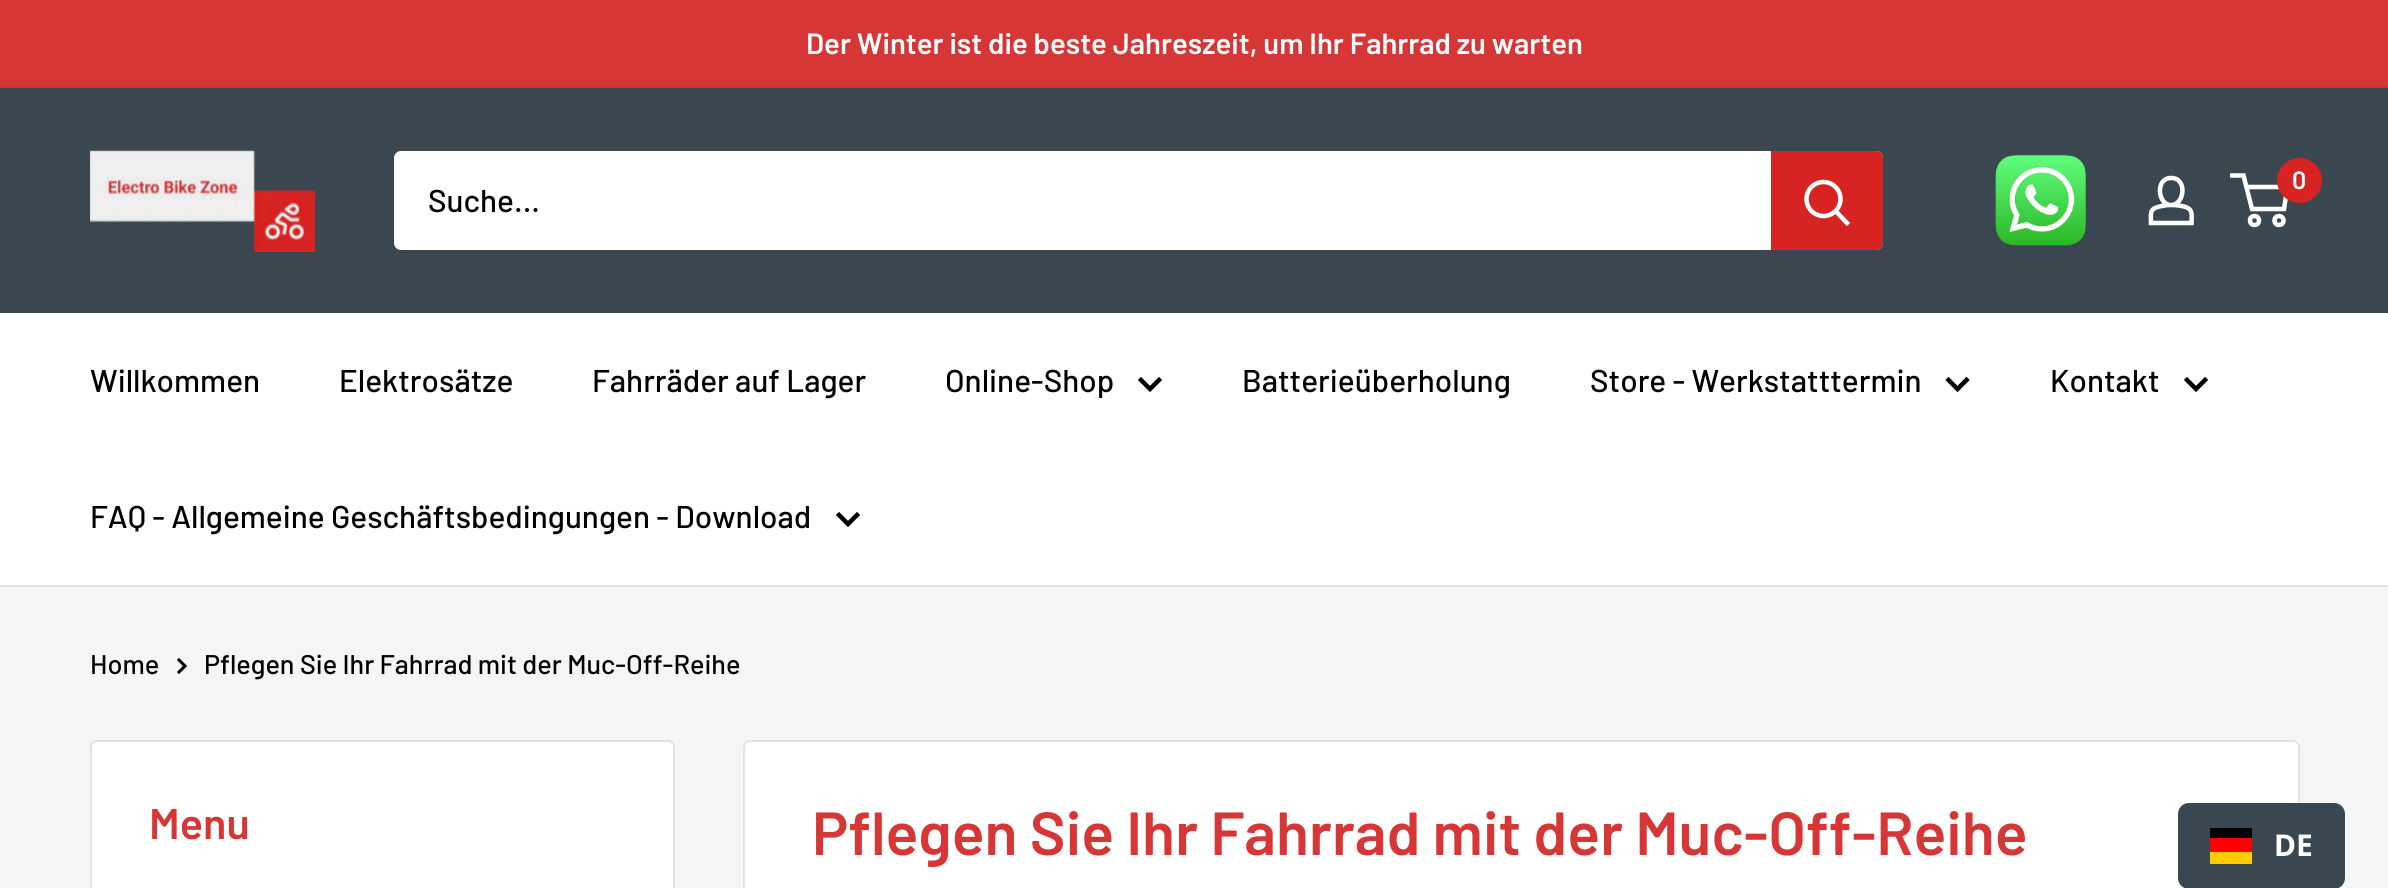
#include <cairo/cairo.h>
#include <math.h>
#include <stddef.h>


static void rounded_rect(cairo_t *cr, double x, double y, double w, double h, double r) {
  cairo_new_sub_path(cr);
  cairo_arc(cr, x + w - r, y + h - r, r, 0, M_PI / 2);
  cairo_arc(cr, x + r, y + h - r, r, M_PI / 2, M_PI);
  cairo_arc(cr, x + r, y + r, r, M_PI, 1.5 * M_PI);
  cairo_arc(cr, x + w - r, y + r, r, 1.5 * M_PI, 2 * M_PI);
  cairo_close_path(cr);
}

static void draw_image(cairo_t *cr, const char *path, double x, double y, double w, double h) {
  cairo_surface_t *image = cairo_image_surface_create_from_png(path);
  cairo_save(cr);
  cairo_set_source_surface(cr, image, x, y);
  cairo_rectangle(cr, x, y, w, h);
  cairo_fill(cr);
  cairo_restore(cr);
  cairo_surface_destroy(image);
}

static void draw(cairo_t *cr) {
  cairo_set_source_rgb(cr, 243 / 255.0, 245 / 255.0, 246 / 255.0);
  cairo_paint(cr);
  cairo_set_source_rgb(cr, 214 / 255.0, 54 / 255.0, 54 / 255.0);
  cairo_rectangle(cr, 0, 0, 2388, 86);
  cairo_fill(cr);
  cairo_set_source_rgb(cr, 216 / 255.0, 45 / 255.0, 45 / 255.0);
  cairo_rectangle(cr, 0, 86, 2388, 2);
  cairo_fill(cr);
  cairo_set_source_rgb(cr, 58 / 255.0, 71 / 255.0, 80 / 255.0);
  cairo_rectangle(cr, 0, 88, 2388, 225);
  cairo_fill(cr);
  draw_image(cr, "images/1.png", 90, 150, 225, 102);
  draw_image(cr, "images/2.png", 1995, 155, 91, 91);
  cairo_new_path(cr);
  cairo_move_to(cr, 2171, 205);
  cairo_curve_to(cr, 2175.5, 205, 2179.5, 205.5, 2184, 206.5);
  cairo_curve_to(cr, 2193.5, 209, 2191.5, 214.5, 2191.5, 223);
  cairo_line_to(cr, 2151, 223);
  cairo_curve_to(cr, 2151, 213.5, 2149, 209, 2159.5, 206.5);
  cairo_curve_to(cr, 2163.5, 205.5, 2167.5, 205, 2171, 205);
  cairo_close_path(cr);
  cairo_move_to(cr, 2171, 205);
  cairo_curve_to(cr, 2157.5, 205, 2155, 178, 2171, 178);
  cairo_curve_to(cr, 2187.5, 177.5, 2185, 205, 2171, 205);
  cairo_close_path(cr);
  cairo_set_source_rgb(cr, 1, 1, 1);
  cairo_set_line_width(cr, 4.5);
  cairo_stroke(cr);
  cairo_arc(cr, 2254.5, 220.5, 4.5, 0, 2 * M_PI);
  cairo_stroke(cr);
  cairo_arc(cr, 2279, 220.5, 4.5, 0, 2 * M_PI);
  cairo_stroke(cr);
  cairo_new_path(cr);
  cairo_move_to(cr, 2246, 187);
  cairo_line_to(cr, 2287.5, 187);
  cairo_line_to(cr, 2284, 209);
  cairo_line_to(cr, 2252, 209);
  cairo_line_to(cr, 2243.5, 175.5);
  cairo_line_to(cr, 2230, 175.5);
  cairo_stroke(cr);
  cairo_set_source_rgb(cr, 215 / 255.0, 35 / 255.0, 34 / 255.0);
  cairo_arc(cr, 2299.5, 180.5, 22.5, 0, 2 * M_PI);
  cairo_fill(cr);
  cairo_set_source_rgb(cr, 1, 1, 1);
  rounded_rect(cr, 394, 151, 1489, 99, 7);
  cairo_fill(cr);
  cairo_set_source_rgb(cr, 215 / 255.0, 35 / 255.0, 34 / 255.0);
  cairo_new_path(cr);
  cairo_move_to(cr, 1771, 151);
  cairo_line_to(cr, 1876, 151);
  cairo_curve_to(cr, 1880, 151, 1883, 154, 1883, 158);
  cairo_line_to(cr, 1883, 243);
  cairo_curve_to(cr, 1883, 247, 1880, 250, 1876, 250);
  cairo_line_to(cr, 1771, 250);
  cairo_close_path(cr);
  cairo_fill(cr);
  cairo_new_path(cr);
  cairo_move_to(cr, 1847, 223);
  cairo_line_to(cr, 1836, 211.5);
  cairo_set_source_rgb(cr, 1, 1, 1);
  cairo_set_line_cap(cr, CAIRO_LINE_CAP_SQUARE);
  cairo_stroke(cr);
  cairo_arc(cr, 1823.5, 199, 17, 0, 2 * M_PI);
  cairo_set_line_cap(cr, CAIRO_LINE_CAP_BUTT);
  cairo_stroke(cr);
  cairo_rectangle(cr, 0, 313, 2388, 272);
  cairo_fill(cr);
  cairo_set_source_rgb(cr, 225 / 255.0, 227 / 255.0, 228 / 255.0);
  cairo_rectangle(cr, 0, 585, 2388, 2);
  cairo_fill(cr);
  cairo_new_path(cr);
  cairo_move_to(cr, 1159, 380);
  cairo_line_to(cr, 1150, 389);
  cairo_line_to(cr, 1141, 380);
  cairo_set_source_rgb(cr, 0, 0, 0);
  cairo_set_line_cap(cr, CAIRO_LINE_CAP_SQUARE);
  cairo_stroke(cr);
  cairo_new_path(cr);
  cairo_move_to(cr, 1966.5, 380);
  cairo_line_to(cr, 1957.5, 389);
  cairo_line_to(cr, 1948.5, 380);
  cairo_stroke(cr);
  cairo_new_path(cr);
  cairo_move_to(cr, 2205, 380);
  cairo_line_to(cr, 2196, 389);
  cairo_line_to(cr, 2187, 380);
  cairo_stroke(cr);
  cairo_new_path(cr);
  cairo_move_to(cr, 857, 515);
  cairo_line_to(cr, 848, 524);
  cairo_line_to(cr, 839, 515);
  cairo_stroke(cr);
  cairo_new_path(cr);
  cairo_move_to(cr, 179, 660);
  cairo_line_to(cr, 185, 666);
  cairo_line_to(cr, 179, 672);
  cairo_set_line_width(cr, 3);
  cairo_stroke(cr);
  cairo_set_source_rgb(cr, 1, 1, 1);
  rounded_rect(cr, 91, 741, 583, 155, 6);
  cairo_fill_preserve(cr);
  cairo_set_source_rgb(cr, 225 / 255.0, 227 / 255.0, 228 / 255.0);
  cairo_set_line_width(cr, 2);
  cairo_set_line_cap(cr, CAIRO_LINE_CAP_BUTT);
  cairo_stroke(cr);
  cairo_set_source_rgb(cr, 1, 1, 1);
  rounded_rect(cr, 744, 741, 1555, 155, 6);
  cairo_fill_preserve(cr);
  cairo_set_source_rgb(cr, 225 / 255.0, 227 / 255.0, 228 / 255.0);
  cairo_stroke(cr);
  cairo_set_source_rgb(cr, 58 / 255.0, 71 / 255.0, 80 / 255.0);
  rounded_rect(cr, 2178, 803, 167, 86, 11);
  cairo_fill(cr);
  cairo_set_source_rgb(cr, 1, 204 / 255.0, 0);
  cairo_rectangle(cr, 2210, 852, 42, 12);
  cairo_fill(cr);
  cairo_set_source_rgb(cr, 0, 0, 1 / 255.0);
  cairo_rectangle(cr, 2210, 828, 42, 10);
  cairo_fill(cr);
  cairo_set_source_rgb(cr, 1, 0, 0);
  cairo_rectangle(cr, 2210, 838, 42, 14);
  cairo_fill(cr);
  cairo_select_font_face(cr, "Barlow SemiBold", CAIRO_FONT_SLANT_NORMAL, CAIRO_FONT_WEIGHT_NORMAL);
  cairo_set_font_size(cr, 29.25);
  cairo_set_source_rgb(cr, 1, 1, 1);
  cairo_move_to(cr, 806, 54);
  cairo_show_text(cr, "Der Winter ist die beste Jahreszeit, um Ihr Fahrrad zu warten");
  cairo_set_font_size(cr, 25);
  cairo_move_to(cr, 2292, 189);
  cairo_show_text(cr, "0");
  cairo_select_font_face(cr, "Barlow Medium", CAIRO_FONT_SLANT_NORMAL, CAIRO_FONT_WEIGHT_NORMAL);
  cairo_set_font_size(cr, 31.5);
  cairo_set_source_rgb(cr, 0, 0, 0);
  cairo_move_to(cr, 428, 212);
  cairo_show_text(cr, "Suche...");
  cairo_move_to(cr, 90, 392);
  cairo_show_text(cr, "Willkommen");
  cairo_move_to(cr, 339, 392);
  cairo_show_text(cr, "Elektrosätze");
  cairo_move_to(cr, 592, 392);
  cairo_show_text(cr, "Fahrräder auf Lager");
  cairo_move_to(cr, 945, 392);
  cairo_show_text(cr, "Online-Shop");
  cairo_move_to(cr, 1242, 392);
  cairo_show_text(cr, "Batterieüberholung");
  cairo_move_to(cr, 1590, 392);
  cairo_show_text(cr, "Store - Werkstatttermin");
  cairo_move_to(cr, 2050, 392);
  cairo_show_text(cr, "Kontakt");
  cairo_move_to(cr, 90, 528);
  cairo_show_text(cr, "FAQ - Allgemeine Geschäftsbedingungen - Download");
  cairo_set_font_size(cr, 27);
  cairo_move_to(cr, 90, 674);
  cairo_show_text(cr, "Home");
  cairo_move_to(cr, 204, 674);
  cairo_show_text(cr, "Pflegen Sie Ihr Fahrrad mit der Muc-Off-Reihe");
  cairo_select_font_face(cr, "Barlow SemiBold", CAIRO_FONT_SLANT_NORMAL, CAIRO_FONT_WEIGHT_NORMAL);
  cairo_set_font_size(cr, 43);
  cairo_set_source_rgb(cr, 214 / 255.0, 54 / 255.0, 54 / 255.0);
  cairo_move_to(cr, 149, 839);
  cairo_show_text(cr, "Menu");
  cairo_set_font_size(cr, 60.75);
  cairo_move_to(cr, 812, 855);
  cairo_show_text(cr, "Pflegen Sie Ihr Fahrrad mit der Muc-Off-Reihe");
  cairo_select_font_face(cr, "Noto Sans", CAIRO_FONT_SLANT_NORMAL, CAIRO_FONT_WEIGHT_BOLD);
  cairo_set_font_size(cr, 30);
  cairo_set_source_rgb(cr, 1, 1, 1);
  cairo_move_to(cr, 2274, 856);
  cairo_show_text(cr, "DE");
}

int main(void) {
  cairo_surface_t *surface = cairo_image_surface_create(CAIRO_FORMAT_RGB24, 2388, 888);
  cairo_t *cr = cairo_create(surface);
  cairo_font_options_t *options = cairo_font_options_create();
  cairo_font_options_set_hint_metrics(options, CAIRO_HINT_METRICS_OFF);
  cairo_font_options_set_hint_style(options, CAIRO_HINT_STYLE_NONE);
  cairo_set_font_options(cr, options);
  cairo_set_miter_limit(cr, 4);
  draw(cr);
  cairo_surface_write_to_png(surface, "out.png");
  cairo_font_options_destroy(options);
  cairo_destroy(cr);
  cairo_surface_destroy(surface);
  return 0;
}
